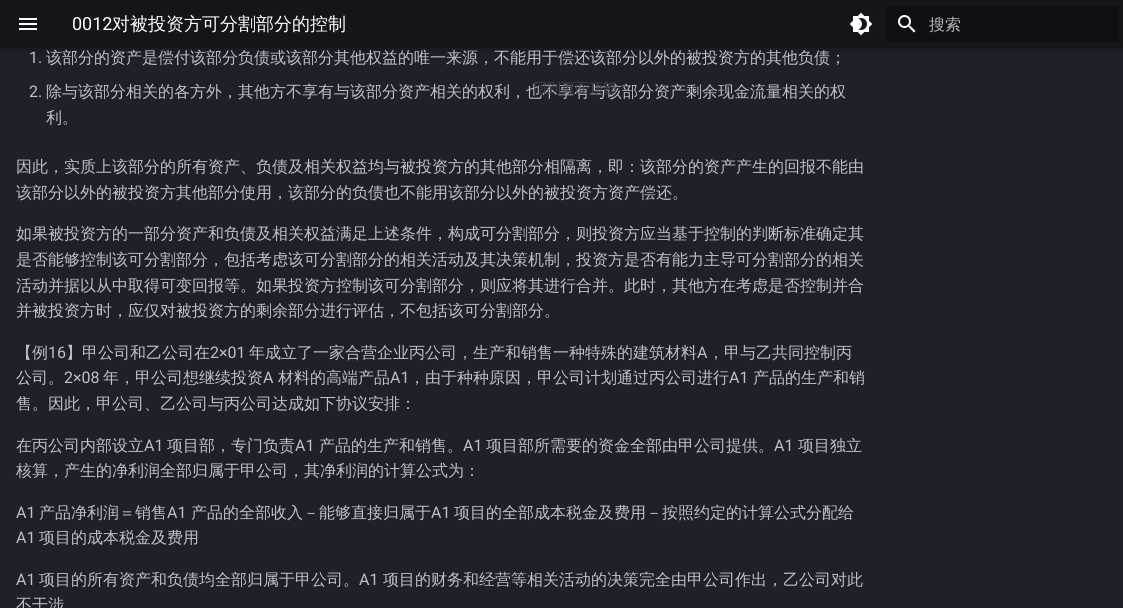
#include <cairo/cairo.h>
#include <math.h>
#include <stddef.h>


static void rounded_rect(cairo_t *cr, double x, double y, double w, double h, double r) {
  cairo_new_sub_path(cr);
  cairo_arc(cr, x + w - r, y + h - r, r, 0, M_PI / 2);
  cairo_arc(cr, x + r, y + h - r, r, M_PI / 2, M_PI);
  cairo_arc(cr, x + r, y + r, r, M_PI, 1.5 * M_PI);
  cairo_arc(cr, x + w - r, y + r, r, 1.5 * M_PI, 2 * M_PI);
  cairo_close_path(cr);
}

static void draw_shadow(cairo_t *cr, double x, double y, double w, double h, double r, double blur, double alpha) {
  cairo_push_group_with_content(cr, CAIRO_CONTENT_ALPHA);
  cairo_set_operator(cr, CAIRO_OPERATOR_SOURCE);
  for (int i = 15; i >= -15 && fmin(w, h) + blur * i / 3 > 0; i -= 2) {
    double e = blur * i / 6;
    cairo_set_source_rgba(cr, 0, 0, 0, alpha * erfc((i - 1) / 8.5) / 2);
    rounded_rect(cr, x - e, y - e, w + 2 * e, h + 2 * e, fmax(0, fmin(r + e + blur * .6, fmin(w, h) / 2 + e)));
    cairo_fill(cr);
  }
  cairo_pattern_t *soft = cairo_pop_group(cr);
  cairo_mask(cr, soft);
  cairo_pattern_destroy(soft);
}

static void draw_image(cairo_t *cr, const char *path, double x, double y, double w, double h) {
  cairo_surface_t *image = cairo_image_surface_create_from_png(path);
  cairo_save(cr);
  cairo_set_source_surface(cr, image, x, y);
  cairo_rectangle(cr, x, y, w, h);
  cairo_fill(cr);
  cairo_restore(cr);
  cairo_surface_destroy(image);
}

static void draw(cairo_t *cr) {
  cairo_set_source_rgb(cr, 30 / 255.0, 33 / 255.0, 41 / 255.0);
  cairo_paint(cr);
  cairo_set_source_rgb(cr, 0, 0, 0);
  draw_shadow(cr, 0, 4, 1123, 48, 0, 4, 0.2);
  cairo_set_source_rgb(cr, 20 / 255.0, 21 / 255.0, 26 / 255.0);
  cairo_rectangle(cr, 0, 0, 1123, 48);
  cairo_fill(cr);
  draw_image(cr, "images/1.png", 19, 18, 18, 12);
  draw_image(cr, "images/2.png", 849, 12, 24, 24);
  cairo_set_source_rgb(cr, 15 / 255.0, 16 / 255.0, 19 / 255.0);
  rounded_rect(cr, 885, 6, 234, 36, 2);
  cairo_fill(cr);
  draw_image(cr, "images/3.png", 898, 15, 18, 18);
  cairo_select_font_face(cr, "Roboto", CAIRO_FONT_SLANT_NORMAL, CAIRO_FONT_WEIGHT_NORMAL);
  cairo_set_font_size(cr, 18);
  cairo_set_source_rgb(cr, 1, 1, 1);
  cairo_move_to(cr, 72, 30);
  cairo_show_text(cr, "0012");
  cairo_select_font_face(cr, "WenQuanYi Zen Hei Medium", CAIRO_FONT_SLANT_NORMAL, CAIRO_FONT_WEIGHT_NORMAL);
  cairo_move_to(cr, 112, 30);
  cairo_show_text(cr, "对被投资方可分割部分的控制");
  cairo_set_font_size(cr, 16);
  cairo_set_source_rgb(cr, 183 / 255.0, 183 / 255.0, 184 / 255.0);
  cairo_move_to(cr, 929, 30);
  cairo_show_text(cr, "搜索");
  cairo_select_font_face(cr, "Roboto", CAIRO_FONT_SLANT_NORMAL, CAIRO_FONT_WEIGHT_NORMAL);
  cairo_set_source_rgb(cr, 191 / 255.0, 193 / 255.0, 198 / 255.0);
  cairo_move_to(cr, 29, 63);
  cairo_show_text(cr, "1.");
  cairo_select_font_face(cr, "WenQuanYi Zen Hei Medium", CAIRO_FONT_SLANT_NORMAL, CAIRO_FONT_WEIGHT_NORMAL);
  cairo_move_to(cr, 46, 63);
  cairo_show_text(cr, "该部分的资产是偿付该部分负债或该部分其他权益的唯一来源，不能用于偿还该部分以外的被投资方的其他负债；");
  cairo_select_font_face(cr, "Roboto", CAIRO_FONT_SLANT_NORMAL, CAIRO_FONT_WEIGHT_NORMAL);
  cairo_move_to(cr, 29, 97);
  cairo_show_text(cr, "2.");
  cairo_select_font_face(cr, "WenQuanYi Zen Hei Medium", CAIRO_FONT_SLANT_NORMAL, CAIRO_FONT_WEIGHT_NORMAL);
  cairo_move_to(cr, 46, 97);
  cairo_show_text(cr, "除与该部分相关的各方外，其他方不享有与该部分资产相关的权利，也不享有与该部分资产剩余现金流量相关的权");
  cairo_move_to(cr, 46, 123);
  cairo_show_text(cr, "利。");
  cairo_move_to(cr, 16, 172);
  cairo_show_text(cr, "因此，实质上该部分的所有资产、负债及相关权益均与被投资方的其他部分相隔离，即：该部分的资产产生的回报不能由");
  cairo_move_to(cr, 16, 198);
  cairo_show_text(cr, "该部分以外的被投资方其他部分使用，该部分的负债也不能用该部分以外的被投资方资产偿还。");
  cairo_move_to(cr, 16, 239);
  cairo_show_text(cr, "如果被投资方的一部分资产和负债及相关权益满足上述条件，构成可分割部分，则投资方应当基于控制的判断标准确定其");
  cairo_move_to(cr, 16, 265);
  cairo_show_text(cr, "是否能够控制该可分割部分，包括考虑该可分割部分的相关活动及其决策机制，投资方是否有能力主导可分割部分的相关");
  cairo_move_to(cr, 16, 291);
  cairo_show_text(cr, "活动并据以从中取得可变回报等。如果投资方控制该可分割部分，则应将其进行合并。此时，其他方在考虑是否控制并合");
  cairo_move_to(cr, 16, 316);
  cairo_show_text(cr, "并被投资方时，应仅对被投资方的剩余部分进行评估，不包括该可分割部分。");
  cairo_move_to(cr, 16, 358);
  cairo_show_text(cr, "【例");
  cairo_select_font_face(cr, "Roboto", CAIRO_FONT_SLANT_NORMAL, CAIRO_FONT_WEIGHT_NORMAL);
  cairo_move_to(cr, 48, 358);
  cairo_show_text(cr, "16");
  cairo_select_font_face(cr, "WenQuanYi Zen Hei Medium", CAIRO_FONT_SLANT_NORMAL, CAIRO_FONT_WEIGHT_NORMAL);
  cairo_move_to(cr, 66, 358);
  cairo_show_text(cr, "】甲公司和乙公司在");
  cairo_select_font_face(cr, "Roboto", CAIRO_FONT_SLANT_NORMAL, CAIRO_FONT_WEIGHT_NORMAL);
  cairo_move_to(cr, 210, 358);
  cairo_show_text(cr, "2×01");
  cairo_select_font_face(cr, "WenQuanYi Zen Hei Medium", CAIRO_FONT_SLANT_NORMAL, CAIRO_FONT_WEIGHT_NORMAL);
  cairo_move_to(cr, 249, 358);
  cairo_show_text(cr, "年成立了一家合营企业丙公司，生产和销售一种特殊的建筑材料");
  cairo_select_font_face(cr, "Roboto", CAIRO_FONT_SLANT_NORMAL, CAIRO_FONT_WEIGHT_NORMAL);
  cairo_move_to(cr, 697, 358);
  cairo_show_text(cr, "A");
  cairo_select_font_face(cr, "WenQuanYi Zen Hei Medium", CAIRO_FONT_SLANT_NORMAL, CAIRO_FONT_WEIGHT_NORMAL);
  cairo_move_to(cr, 708, 358);
  cairo_show_text(cr, "，甲与乙共同控制丙");
  cairo_move_to(cr, 16, 383);
  cairo_show_text(cr, "公司。");
  cairo_select_font_face(cr, "Roboto", CAIRO_FONT_SLANT_NORMAL, CAIRO_FONT_WEIGHT_NORMAL);
  cairo_move_to(cr, 64, 383);
  cairo_show_text(cr, "2×08");
  cairo_select_font_face(cr, "WenQuanYi Zen Hei Medium", CAIRO_FONT_SLANT_NORMAL, CAIRO_FONT_WEIGHT_NORMAL);
  cairo_move_to(cr, 103, 383);
  cairo_show_text(cr, "年，甲公司想继续投资");
  cairo_select_font_face(cr, "Roboto", CAIRO_FONT_SLANT_NORMAL, CAIRO_FONT_WEIGHT_NORMAL);
  cairo_move_to(cr, 263, 383);
  cairo_show_text(cr, "A");
  cairo_select_font_face(cr, "WenQuanYi Zen Hei Medium", CAIRO_FONT_SLANT_NORMAL, CAIRO_FONT_WEIGHT_NORMAL);
  cairo_move_to(cr, 278, 383);
  cairo_show_text(cr, "材料的高端产品");
  cairo_select_font_face(cr, "Roboto", CAIRO_FONT_SLANT_NORMAL, CAIRO_FONT_WEIGHT_NORMAL);
  cairo_move_to(cr, 390, 383);
  cairo_show_text(cr, "A1");
  cairo_select_font_face(cr, "WenQuanYi Zen Hei Medium", CAIRO_FONT_SLANT_NORMAL, CAIRO_FONT_WEIGHT_NORMAL);
  cairo_move_to(cr, 409, 383);
  cairo_show_text(cr, "，由于种种原因，甲公司计划通过丙公司进行");
  cairo_select_font_face(cr, "Roboto", CAIRO_FONT_SLANT_NORMAL, CAIRO_FONT_WEIGHT_NORMAL);
  cairo_move_to(cr, 729, 383);
  cairo_show_text(cr, "A1");
  cairo_select_font_face(cr, "WenQuanYi Zen Hei Medium", CAIRO_FONT_SLANT_NORMAL, CAIRO_FONT_WEIGHT_NORMAL);
  cairo_move_to(cr, 753, 383);
  cairo_show_text(cr, "产品的生产和销");
  cairo_move_to(cr, 16, 409);
  cairo_show_text(cr, "售。因此，甲公司、乙公司与丙公司达成如下协议安排：");
  cairo_move_to(cr, 16, 451);
  cairo_show_text(cr, "在丙公司内部设立");
  cairo_select_font_face(cr, "Roboto", CAIRO_FONT_SLANT_NORMAL, CAIRO_FONT_WEIGHT_NORMAL);
  cairo_move_to(cr, 144, 451);
  cairo_show_text(cr, "A1");
  cairo_select_font_face(cr, "WenQuanYi Zen Hei Medium", CAIRO_FONT_SLANT_NORMAL, CAIRO_FONT_WEIGHT_NORMAL);
  cairo_move_to(cr, 167, 451);
  cairo_show_text(cr, "项目部，专门负责");
  cairo_select_font_face(cr, "Roboto", CAIRO_FONT_SLANT_NORMAL, CAIRO_FONT_WEIGHT_NORMAL);
  cairo_move_to(cr, 295, 451);
  cairo_show_text(cr, "A1");
  cairo_select_font_face(cr, "WenQuanYi Zen Hei Medium", CAIRO_FONT_SLANT_NORMAL, CAIRO_FONT_WEIGHT_NORMAL);
  cairo_move_to(cr, 319, 451);
  cairo_show_text(cr, "产品的生产和销售。");
  cairo_select_font_face(cr, "Roboto", CAIRO_FONT_SLANT_NORMAL, CAIRO_FONT_WEIGHT_NORMAL);
  cairo_move_to(cr, 463, 451);
  cairo_show_text(cr, "A1");
  cairo_select_font_face(cr, "WenQuanYi Zen Hei Medium", CAIRO_FONT_SLANT_NORMAL, CAIRO_FONT_WEIGHT_NORMAL);
  cairo_move_to(cr, 486, 451);
  cairo_show_text(cr, "项目部所需要的资金全部由甲公司提供。");
  cairo_select_font_face(cr, "Roboto", CAIRO_FONT_SLANT_NORMAL, CAIRO_FONT_WEIGHT_NORMAL);
  cairo_move_to(cr, 774, 451);
  cairo_show_text(cr, "A1");
  cairo_select_font_face(cr, "WenQuanYi Zen Hei Medium", CAIRO_FONT_SLANT_NORMAL, CAIRO_FONT_WEIGHT_NORMAL);
  cairo_move_to(cr, 798, 451);
  cairo_show_text(cr, "项目独立");
  cairo_move_to(cr, 16, 476);
  cairo_show_text(cr, "核算，产生的净利润全部归属于甲公司，其净利润的计算公式为：");
  cairo_select_font_face(cr, "Roboto", CAIRO_FONT_SLANT_NORMAL, CAIRO_FONT_WEIGHT_NORMAL);
  cairo_move_to(cr, 16, 518);
  cairo_show_text(cr, "A1");
  cairo_select_font_face(cr, "WenQuanYi Zen Hei Medium", CAIRO_FONT_SLANT_NORMAL, CAIRO_FONT_WEIGHT_NORMAL);
  cairo_move_to(cr, 39, 518);
  cairo_show_text(cr, "产品净利润＝销售");
  cairo_select_font_face(cr, "Roboto", CAIRO_FONT_SLANT_NORMAL, CAIRO_FONT_WEIGHT_NORMAL);
  cairo_move_to(cr, 167, 518);
  cairo_show_text(cr, "A1");
  cairo_select_font_face(cr, "WenQuanYi Zen Hei Medium", CAIRO_FONT_SLANT_NORMAL, CAIRO_FONT_WEIGHT_NORMAL);
  cairo_move_to(cr, 191, 518);
  cairo_show_text(cr, "产品的全部收入－能够直接归属于");
  cairo_select_font_face(cr, "Roboto", CAIRO_FONT_SLANT_NORMAL, CAIRO_FONT_WEIGHT_NORMAL);
  cairo_move_to(cr, 431, 518);
  cairo_show_text(cr, "A1");
  cairo_select_font_face(cr, "WenQuanYi Zen Hei Medium", CAIRO_FONT_SLANT_NORMAL, CAIRO_FONT_WEIGHT_NORMAL);
  cairo_move_to(cr, 454, 518);
  cairo_show_text(cr, "项目的全部成本税金及费用－按照约定的计算公式分配给");
  cairo_select_font_face(cr, "Roboto", CAIRO_FONT_SLANT_NORMAL, CAIRO_FONT_WEIGHT_NORMAL);
  cairo_move_to(cr, 16, 543);
  cairo_show_text(cr, "A1");
  cairo_select_font_face(cr, "WenQuanYi Zen Hei Medium", CAIRO_FONT_SLANT_NORMAL, CAIRO_FONT_WEIGHT_NORMAL);
  cairo_move_to(cr, 39, 543);
  cairo_show_text(cr, "项目的成本税金及费用");
  cairo_select_font_face(cr, "Roboto", CAIRO_FONT_SLANT_NORMAL, CAIRO_FONT_WEIGHT_NORMAL);
  cairo_move_to(cr, 16, 585);
  cairo_show_text(cr, "A1");
  cairo_select_font_face(cr, "WenQuanYi Zen Hei Medium", CAIRO_FONT_SLANT_NORMAL, CAIRO_FONT_WEIGHT_NORMAL);
  cairo_move_to(cr, 39, 585);
  cairo_show_text(cr, "项目的所有资产和负债均全部归属于甲公司。");
  cairo_select_font_face(cr, "Roboto", CAIRO_FONT_SLANT_NORMAL, CAIRO_FONT_WEIGHT_NORMAL);
  cairo_move_to(cr, 359, 585);
  cairo_show_text(cr, "A1");
  cairo_select_font_face(cr, "WenQuanYi Zen Hei Medium", CAIRO_FONT_SLANT_NORMAL, CAIRO_FONT_WEIGHT_NORMAL);
  cairo_move_to(cr, 383, 585);
  cairo_show_text(cr, "项目的财务和经营等相关活动的决策完全由甲公司作出，乙公司对此");
  cairo_move_to(cr, 16, 610);
  cairo_show_text(cr, "不干涉");
  cairo_set_font_size(cr, 14);
  cairo_set_source_rgb(cr, 66 / 255.0, 69 / 255.0, 76 / 255.0);
  cairo_move_to(cr, 533, 93);
  cairo_show_text(cr, "回到页面顶部");
}

int main(void) {
  cairo_surface_t *surface = cairo_image_surface_create(CAIRO_FORMAT_RGB24, 1123, 608);
  cairo_t *cr = cairo_create(surface);
  cairo_font_options_t *options = cairo_font_options_create();
  cairo_font_options_set_hint_metrics(options, CAIRO_HINT_METRICS_OFF);
  cairo_font_options_set_hint_style(options, CAIRO_HINT_STYLE_NONE);
  cairo_set_font_options(cr, options);
  cairo_set_miter_limit(cr, 4);
  draw(cr);
  cairo_surface_write_to_png(surface, "out.png");
  cairo_font_options_destroy(options);
  cairo_destroy(cr);
  cairo_surface_destroy(surface);
  return 0;
}
